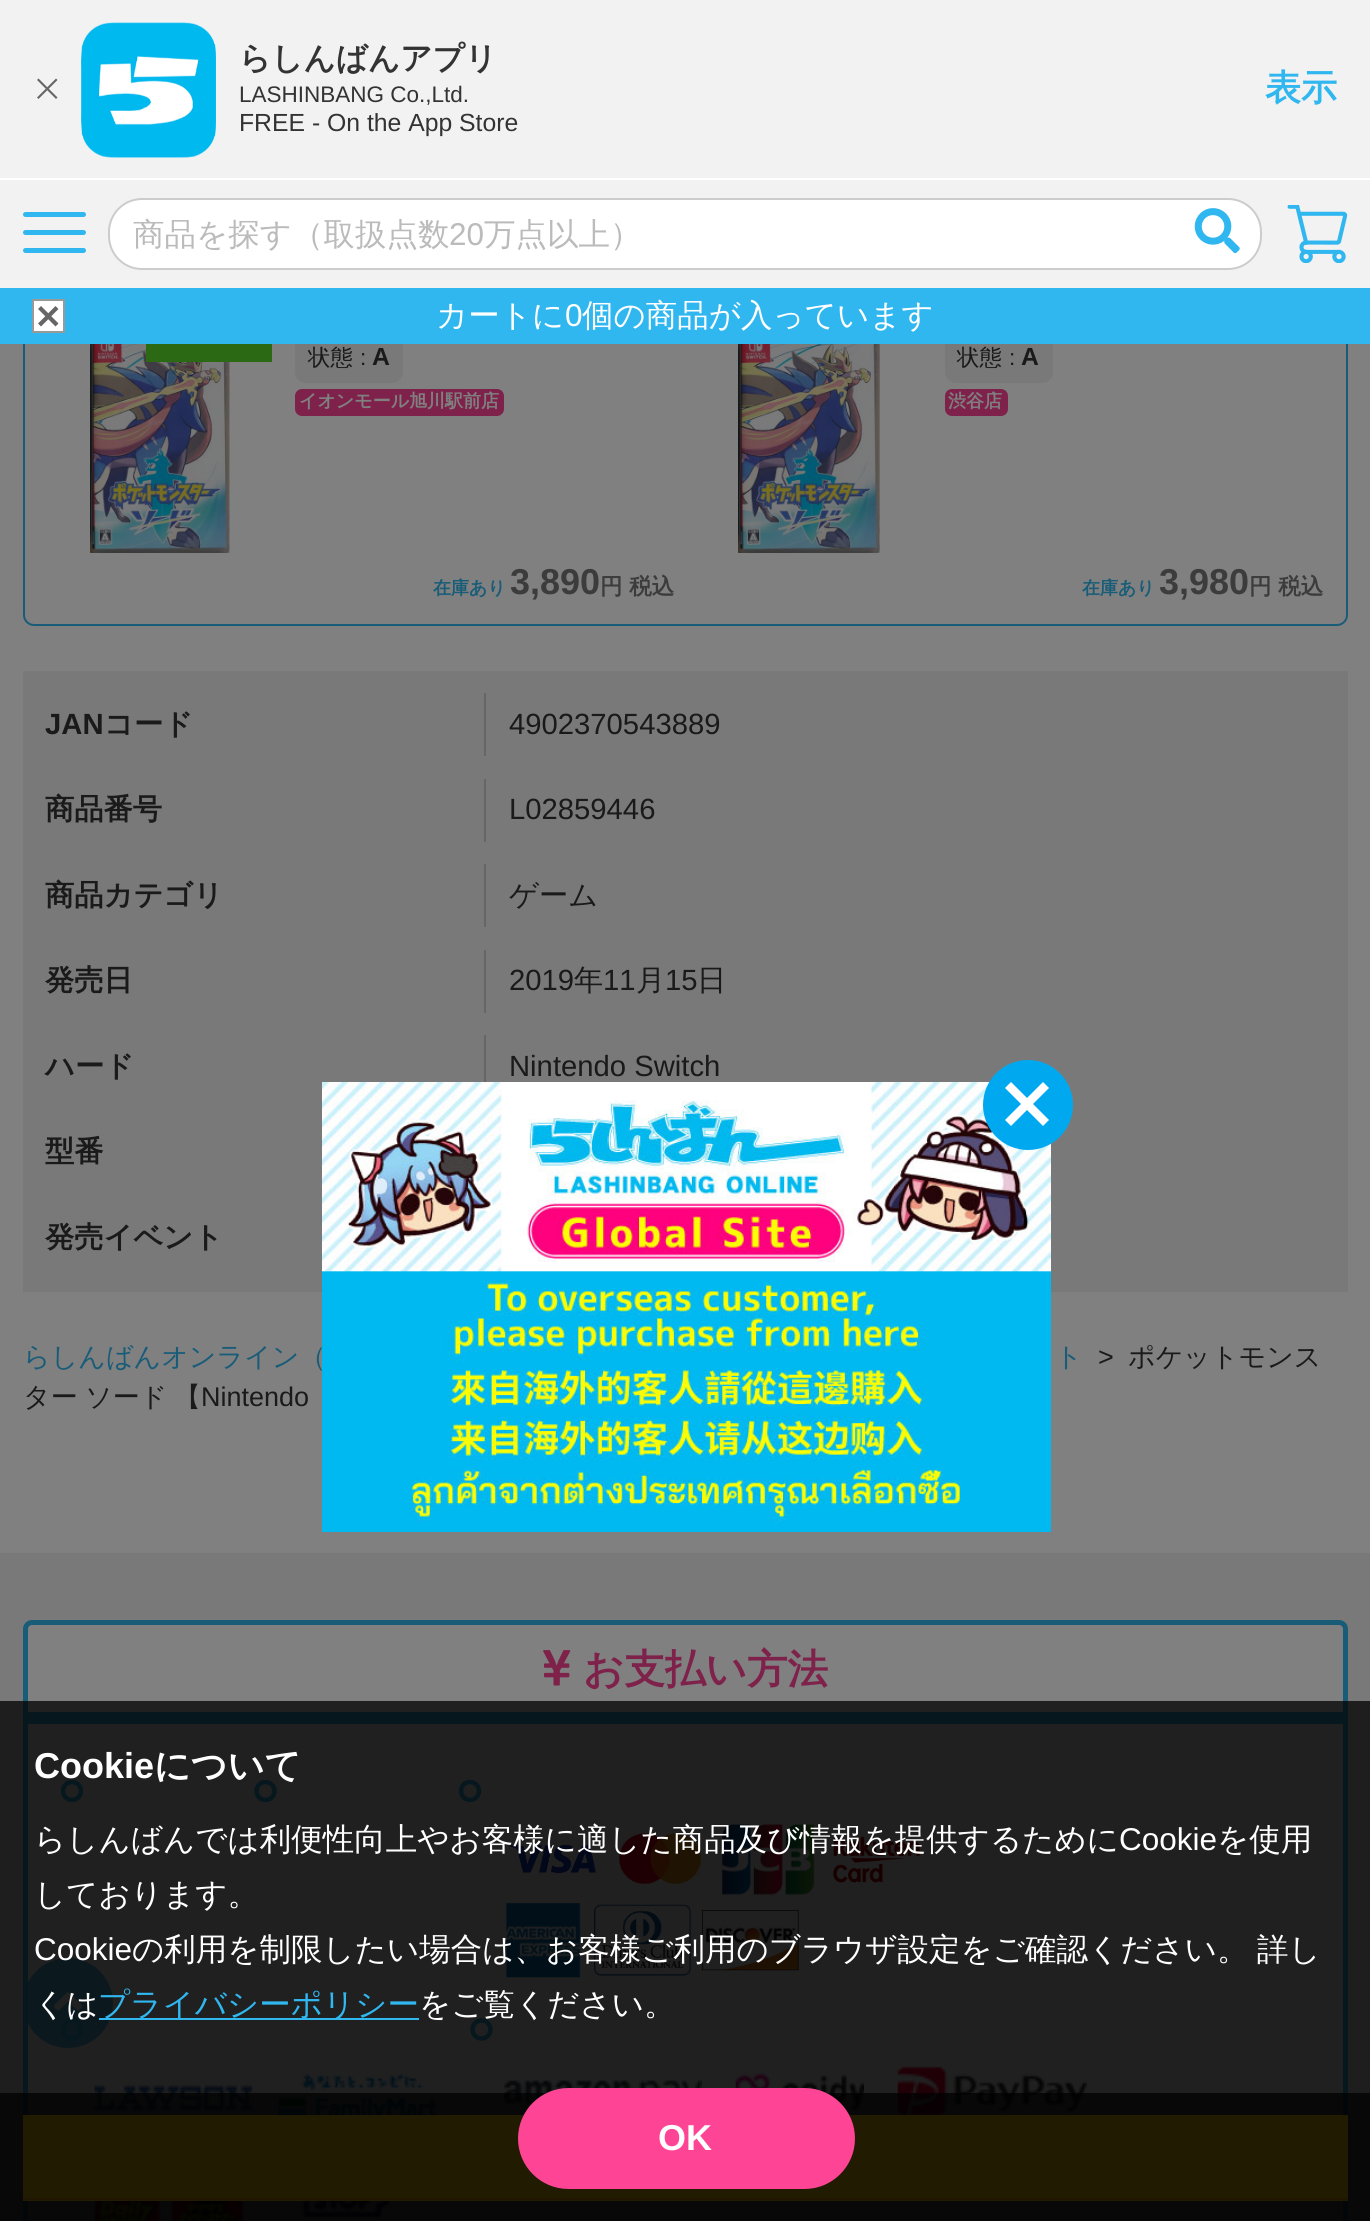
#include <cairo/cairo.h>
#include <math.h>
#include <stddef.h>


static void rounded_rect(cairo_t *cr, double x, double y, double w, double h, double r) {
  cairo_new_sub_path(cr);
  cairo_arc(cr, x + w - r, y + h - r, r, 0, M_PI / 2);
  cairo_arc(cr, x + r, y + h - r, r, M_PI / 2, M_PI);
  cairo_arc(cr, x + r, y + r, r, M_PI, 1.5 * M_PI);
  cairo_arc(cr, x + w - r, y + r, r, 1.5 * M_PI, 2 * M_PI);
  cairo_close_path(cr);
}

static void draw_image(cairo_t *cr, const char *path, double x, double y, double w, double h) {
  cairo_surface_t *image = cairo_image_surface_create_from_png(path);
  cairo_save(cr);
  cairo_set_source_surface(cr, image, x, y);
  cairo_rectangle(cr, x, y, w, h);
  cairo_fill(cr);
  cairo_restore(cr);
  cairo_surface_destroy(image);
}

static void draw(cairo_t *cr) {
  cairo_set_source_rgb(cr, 128 / 255.0, 128 / 255.0, 128 / 255.0);
  cairo_paint(cr);
  rounded_rect(cr, 24, -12, 1323, 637, 10);
  cairo_set_source_rgb(cr, 24 / 255.0, 92 / 255.0, 120 / 255.0);
  cairo_stroke(cr);
  cairo_set_source_rgb(cr, 242 / 255.0, 242 / 255.0, 242 / 255.0);
  cairo_rectangle(cr, 0, 0, 1370, 178);
  cairo_fill(cr);
  cairo_set_source_rgb(cr, 1, 1, 1);
  cairo_rectangle(cr, 0, 178, 1370, 2);
  cairo_fill(cr);
  cairo_set_source_rgb(cr, 102 / 255.0, 102 / 255.0, 102 / 255.0);
  cairo_new_path(cr);
  cairo_move_to(cr, 38.5, 78.5);
  cairo_line_to(cr, 57.5, 97.5);
  cairo_line_to(cr, 56, 99);
  cairo_line_to(cr, 37, 80);
  cairo_close_path(cr);
  cairo_fill(cr);
  cairo_new_path(cr);
  cairo_move_to(cr, 37, 97.5);
  cairo_line_to(cr, 56, 78.5);
  cairo_line_to(cr, 57.5, 80);
  cairo_line_to(cr, 38.5, 99);
  cairo_close_path(cr);
  cairo_fill(cr);
  draw_image(cr, "images/1.png", 81, 22, 135, 136);
  cairo_set_source_rgb(cr, 242 / 255.0, 242 / 255.0, 242 / 255.0);
  cairo_rectangle(cr, 0, 180, 1370, 108);
  cairo_fill(cr);
  cairo_set_source_rgb(cr, 48 / 255.0, 183 / 255.0, 239 / 255.0);
  rounded_rect(cr, 23, 212, 63, 5, 2.5);
  cairo_fill(cr);
  rounded_rect(cr, 23, 230, 63, 5, 2.5);
  cairo_fill(cr);
  rounded_rect(cr, 23, 248, 63, 5, 2.5);
  cairo_fill(cr);
  draw_image(cr, "images/2.png", 1287, 205, 61, 58);
  cairo_set_source_rgb(cr, 1, 1, 1);
  rounded_rect(cr, 109, 199, 1152, 70, 33);
  cairo_fill_preserve(cr);
  cairo_set_source_rgb(cr, 204 / 255.0, 204 / 255.0, 204 / 255.0);
  cairo_stroke(cr);
  draw_image(cr, "images/3.png", 1194, 208, 46, 46);
  cairo_set_source_rgb(cr, 121 / 255.0, 121 / 255.0, 121 / 255.0);
  rounded_rect(cr, 295, 329, 108, 54, 11);
  cairo_fill(cr);
  rounded_rect(cr, 945, 329, 108, 54, 11);
  cairo_fill(cr);
  cairo_set_source_rgb(cr, 48 / 255.0, 183 / 255.0, 239 / 255.0);
  cairo_rectangle(cr, 0, 288, 1370, 56);
  cairo_fill(cr);
  cairo_set_source_rgb(cr, 1, 1, 1);
  cairo_rectangle(cr, 33, 300, 31, 32);
  cairo_fill_preserve(cr);
  cairo_set_source_rgb(cr, 153 / 255.0, 153 / 255.0, 153 / 255.0);
  cairo_stroke(cr);
  cairo_set_source_rgb(cr, 102 / 255.0, 102 / 255.0, 102 / 255.0);
  cairo_new_path(cr);
  cairo_move_to(cr, 41, 306);
  cairo_line_to(cr, 58.5, 323.5);
  cairo_line_to(cr, 55.5, 326.5);
  cairo_line_to(cr, 38, 309);
  cairo_close_path(cr);
  cairo_fill(cr);
  cairo_new_path(cr);
  cairo_move_to(cr, 38, 323.5);
  cairo_line_to(cr, 55.5, 306);
  cairo_line_to(cr, 58.5, 309);
  cairo_line_to(cr, 41, 326.5);
  cairo_close_path(cr);
  cairo_fill(cr);
  draw_image(cr, "images/4.png", 90, 344, 140, 209);
  cairo_set_source_rgb(cr, 43 / 255.0, 105 / 255.0, 21 / 255.0);
  cairo_rectangle(cr, 146, 344, 126, 18);
  cairo_fill(cr);
  cairo_set_source_rgb(cr, 127 / 255.0, 34 / 255.0, 75 / 255.0);
  rounded_rect(cr, 295, 389, 209, 27, 7);
  cairo_fill(cr);
  draw_image(cr, "images/5.png", 738, 344, 142, 209);
  rounded_rect(cr, 945, 389, 63, 27, 7);
  cairo_fill(cr);
  cairo_set_source_rgb(cr, 121 / 255.0, 121 / 255.0, 121 / 255.0);
  cairo_rectangle(cr, 23, 671, 1325, 621);
  cairo_fill(cr);
  cairo_set_source_rgb(cr, 102 / 255.0, 102 / 255.0, 102 / 255.0);
  cairo_rectangle(cr, 484, 693, 2, 63);
  cairo_fill(cr);
  cairo_rectangle(cr, 484, 779, 2, 63);
  cairo_fill(cr);
  cairo_rectangle(cr, 484, 864, 2, 63);
  cairo_fill(cr);
  cairo_rectangle(cr, 484, 950, 2, 63);
  cairo_fill(cr);
  cairo_rectangle(cr, 484, 1035, 2, 47);
  cairo_fill(cr);
  cairo_set_source_rgb(cr, 121 / 255.0, 121 / 255.0, 121 / 255.0);
  cairo_rectangle(cr, 0, 1553, 1370, 668);
  cairo_fill(cr);
  cairo_set_source_rgb(cr, 128 / 255.0, 128 / 255.0, 128 / 255.0);
  rounded_rect(cr, 25.5, 1622.5, 1320, 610, 6.5);
  cairo_fill_preserve(cr);
  cairo_set_source_rgb(cr, 24 / 255.0, 92 / 255.0, 120 / 255.0);
  cairo_set_line_width(cr, 5);
  cairo_stroke(cr);
  draw_image(cr, "images/8.png", 94, 2073, 343, 148);
  draw_image(cr, "images/9.png", 504, 2080, 198, 33);
  draw_image(cr, "images/10.png", 735, 2073, 129, 38);
  draw_image(cr, "images/11.png", 897, 2066, 190, 49);
  cairo_set_source_rgba(cr, 0, 0, 0, 0.75);
  cairo_rectangle(cr, 0, 2093, 1370, 128);
  cairo_fill(cr);
  cairo_set_source_rgb(cr, 128 / 255.0, 106 / 255.0, 5 / 255.0);
  cairo_rectangle(cr, 23, 2115, 1325, 86);
  cairo_fill(cr);
  cairo_set_source_rgb(cr, 128 / 255.0, 86 / 255.0, 5 / 255.0);
  cairo_rectangle(cr, 23, 2198, 1325, 2);
  cairo_fill(cr);
  cairo_set_source_rgb(cr, 24 / 255.0, 92 / 255.0, 120 / 255.0);
  cairo_rectangle(cr, 28, 1712, 1315, 12);
  cairo_fill(cr);
  draw_image(cr, "images/6.png", 543, 1650, 28, 36);
  cairo_save(cr);
  cairo_rectangle(cr, 61, 1780, 22, 22);
  cairo_clip(cr);
  cairo_arc(cr, 72, 1791, 9, 0, 2 * M_PI);
  cairo_set_line_width(cr, 4.5);
  cairo_stroke(cr);
  cairo_restore(cr);
  cairo_save(cr);
  cairo_rectangle(cr, 254, 1780, 23, 22);
  cairo_clip(cr);
  cairo_arc(cr, 265.5, 1791, 9, 0, 2 * M_PI);
  cairo_set_line_width(cr, 4.5);
  cairo_stroke(cr);
  cairo_restore(cr);
  cairo_save(cr);
  cairo_rectangle(cr, 459, 1780, 23, 22);
  cairo_clip(cr);
  cairo_arc(cr, 470, 1791, 9, 0, 2 * M_PI);
  cairo_set_line_width(cr, 4.5);
  cairo_stroke(cr);
  cairo_restore(cr);
  draw_image(cr, "images/7.png", 505, 1824, 415, 154);
  cairo_save(cr);
  cairo_rectangle(cr, 61, 2018, 22, 23);
  cairo_clip(cr);
  cairo_arc(cr, 72, 2029.5, 9, 0, 2 * M_PI);
  cairo_set_line_width(cr, 4.5);
  cairo_stroke(cr);
  cairo_restore(cr);
  cairo_arc(cr, 481.5, 2029.5, 9, 0, 2 * M_PI);
  cairo_set_line_width(cr, 4.5);
  cairo_stroke(cr);
  cairo_set_source_rgba(cr, 24 / 255.0, 92 / 255.0, 120 / 255.0, 0.8);
  cairo_arc(cr, 68, 2003, 45, 0, 2 * M_PI);
  cairo_fill(cr);
  draw_image(cr, "images/12.png", 54, 1992, 29, 19);
  draw_image(cr, "images/13.png", 322, 1082, 729, 450);
  cairo_set_source_rgb(cr, 0, 169 / 255.0, 239 / 255.0);
  cairo_arc(cr, 1028, 1105, 45, 0, 2 * M_PI);
  cairo_fill(cr);
  cairo_set_source_rgb(cr, 1, 1, 1);
  cairo_new_path(cr);
  cairo_move_to(cr, 1011, 1082);
  cairo_line_to(cr, 1049, 1120);
  cairo_line_to(cr, 1043, 1126);
  cairo_line_to(cr, 1005, 1088);
  cairo_close_path(cr);
  cairo_fill(cr);
  cairo_new_path(cr);
  cairo_move_to(cr, 1005, 1120);
  cairo_line_to(cr, 1043, 1082);
  cairo_line_to(cr, 1049, 1088);
  cairo_line_to(cr, 1011, 1126);
  cairo_close_path(cr);
  cairo_fill(cr);
  cairo_set_source_rgba(cr, 0, 0, 0, 0.75);
  cairo_rectangle(cr, 0, 1701, 1370, 520);
  cairo_fill(cr);
  cairo_set_source_rgb(cr, 48 / 255.0, 183 / 255.0, 239 / 255.0);
  cairo_rectangle(cr, 99, 2018, 320, 2);
  cairo_fill(cr);
  cairo_set_source_rgb(cr, 253 / 255.0, 68 / 255.0, 149 / 255.0);
  rounded_rect(cr, 518, 2088, 337, 101, 50.5);
  cairo_fill(cr);
  cairo_select_font_face(cr, "WenQuanYi Zen Hei", CAIRO_FONT_SLANT_NORMAL, CAIRO_FONT_WEIGHT_BOLD);
  cairo_set_font_size(cr, 31.5);
  cairo_set_source_rgb(cr, 51 / 255.0, 51 / 255.0, 51 / 255.0);
  cairo_move_to(cr, 239, 69);
  cairo_show_text(cr, "らしんばんアプリ");
  cairo_select_font_face(cr, "Liberation Sans", CAIRO_FONT_SLANT_NORMAL, CAIRO_FONT_WEIGHT_NORMAL);
  cairo_set_font_size(cr, 22.5);
  cairo_move_to(cr, 239, 102);
  cairo_show_text(cr, "LASHINBANG Co.,Ltd.");
  cairo_set_font_size(cr, 24.75);
  cairo_move_to(cr, 239, 131);
  cairo_show_text(cr, "FREE - On the App Store");
  cairo_select_font_face(cr, "WenQuanYi Zen Hei", CAIRO_FONT_SLANT_NORMAL, CAIRO_FONT_WEIGHT_BOLD);
  cairo_set_font_size(cr, 36);
  cairo_set_source_rgb(cr, 48 / 255.0, 183 / 255.0, 239 / 255.0);
  cairo_move_to(cr, 1265, 100);
  cairo_show_text(cr, "表示");
  cairo_select_font_face(cr, "WenQuanYi Zen Hei Medium", CAIRO_FONT_SLANT_NORMAL, CAIRO_FONT_WEIGHT_NORMAL);
  cairo_set_font_size(cr, 31.5);
  cairo_set_source_rgb(cr, 187 / 255.0, 187 / 255.0, 187 / 255.0);
  cairo_move_to(cr, 133, 245);
  cairo_show_text(cr, "商品を探す（取扱点数");
  cairo_select_font_face(cr, "Liberation Sans", CAIRO_FONT_SLANT_NORMAL, CAIRO_FONT_WEIGHT_NORMAL);
  cairo_move_to(cr, 449, 245);
  cairo_show_text(cr, "20");
  cairo_select_font_face(cr, "WenQuanYi Zen Hei Medium", CAIRO_FONT_SLANT_NORMAL, CAIRO_FONT_WEIGHT_NORMAL);
  cairo_move_to(cr, 484, 245);
  cairo_show_text(cr, "万点以上）");
  cairo_set_source_rgb(cr, 1, 1, 1);
  cairo_move_to(cr, 436, 326);
  cairo_show_text(cr, "カートに");
  cairo_select_font_face(cr, "Liberation Sans", CAIRO_FONT_SLANT_NORMAL, CAIRO_FONT_WEIGHT_NORMAL);
  cairo_move_to(cr, 565, 326);
  cairo_show_text(cr, "0");
  cairo_select_font_face(cr, "WenQuanYi Zen Hei Medium", CAIRO_FONT_SLANT_NORMAL, CAIRO_FONT_WEIGHT_NORMAL);
  cairo_move_to(cr, 582, 326);
  cairo_show_text(cr, "個の商品が入っています");
  cairo_set_font_size(cr, 22.5);
  cairo_set_source_rgb(cr, 26 / 255.0, 26 / 255.0, 26 / 255.0);
  cairo_move_to(cr, 308, 365);
  cairo_show_text(cr, "状態");
  cairo_select_font_face(cr, "Liberation Sans", CAIRO_FONT_SLANT_NORMAL, CAIRO_FONT_WEIGHT_NORMAL);
  cairo_move_to(cr, 360, 365);
  cairo_show_text(cr, ":");
  cairo_select_font_face(cr, "Liberation Sans", CAIRO_FONT_SLANT_NORMAL, CAIRO_FONT_WEIGHT_BOLD);
  cairo_set_font_size(cr, 24.75);
  cairo_move_to(cr, 372, 365);
  cairo_show_text(cr, "A");
  cairo_select_font_face(cr, "WenQuanYi Zen Hei", CAIRO_FONT_SLANT_NORMAL, CAIRO_FONT_WEIGHT_BOLD);
  cairo_set_font_size(cr, 18);
  cairo_set_source_rgb(cr, 128 / 255.0, 128 / 255.0, 128 / 255.0);
  cairo_move_to(cr, 299, 407);
  cairo_show_text(cr, "イオンモール旭川駅前店");
  cairo_set_source_rgb(cr, 24 / 255.0, 92 / 255.0, 120 / 255.0);
  cairo_move_to(cr, 433, 594);
  cairo_show_text(cr, "在庫あり");
  cairo_select_font_face(cr, "Liberation Sans", CAIRO_FONT_SLANT_NORMAL, CAIRO_FONT_WEIGHT_BOLD);
  cairo_set_font_size(cr, 36);
  cairo_set_source_rgb(cr, 60 / 255.0, 60 / 255.0, 60 / 255.0);
  cairo_move_to(cr, 510, 594);
  cairo_show_text(cr, "3,890");
  cairo_select_font_face(cr, "WenQuanYi Zen Hei", CAIRO_FONT_SLANT_NORMAL, CAIRO_FONT_WEIGHT_BOLD);
  cairo_set_font_size(cr, 22.5);
  cairo_move_to(cr, 600, 594);
  cairo_show_text(cr, "円 税込");
  cairo_select_font_face(cr, "WenQuanYi Zen Hei Medium", CAIRO_FONT_SLANT_NORMAL, CAIRO_FONT_WEIGHT_NORMAL);
  cairo_set_source_rgb(cr, 26 / 255.0, 26 / 255.0, 26 / 255.0);
  cairo_move_to(cr, 957, 365);
  cairo_show_text(cr, "状態");
  cairo_select_font_face(cr, "Liberation Sans", CAIRO_FONT_SLANT_NORMAL, CAIRO_FONT_WEIGHT_NORMAL);
  cairo_move_to(cr, 1009, 365);
  cairo_show_text(cr, ":");
  cairo_select_font_face(cr, "Liberation Sans", CAIRO_FONT_SLANT_NORMAL, CAIRO_FONT_WEIGHT_BOLD);
  cairo_set_font_size(cr, 24.75);
  cairo_move_to(cr, 1021, 365);
  cairo_show_text(cr, "A");
  cairo_select_font_face(cr, "WenQuanYi Zen Hei", CAIRO_FONT_SLANT_NORMAL, CAIRO_FONT_WEIGHT_BOLD);
  cairo_set_font_size(cr, 18);
  cairo_set_source_rgb(cr, 128 / 255.0, 128 / 255.0, 128 / 255.0);
  cairo_move_to(cr, 948, 407);
  cairo_show_text(cr, "渋谷店");
  cairo_set_source_rgb(cr, 24 / 255.0, 92 / 255.0, 120 / 255.0);
  cairo_move_to(cr, 1082, 594);
  cairo_show_text(cr, "在庫あり");
  cairo_select_font_face(cr, "Liberation Sans", CAIRO_FONT_SLANT_NORMAL, CAIRO_FONT_WEIGHT_BOLD);
  cairo_set_font_size(cr, 36);
  cairo_set_source_rgb(cr, 60 / 255.0, 60 / 255.0, 60 / 255.0);
  cairo_move_to(cr, 1159, 594);
  cairo_show_text(cr, "3,980");
  cairo_select_font_face(cr, "WenQuanYi Zen Hei", CAIRO_FONT_SLANT_NORMAL, CAIRO_FONT_WEIGHT_BOLD);
  cairo_set_font_size(cr, 22.5);
  cairo_move_to(cr, 1249, 594);
  cairo_show_text(cr, "円 税込");
  cairo_select_font_face(cr, "Liberation Sans", CAIRO_FONT_SLANT_NORMAL, CAIRO_FONT_WEIGHT_BOLD);
  cairo_set_font_size(cr, 29.25);
  cairo_set_source_rgb(cr, 26 / 255.0, 26 / 255.0, 26 / 255.0);
  cairo_move_to(cr, 45, 734);
  cairo_show_text(cr, "JAN");
  cairo_select_font_face(cr, "WenQuanYi Zen Hei", CAIRO_FONT_SLANT_NORMAL, CAIRO_FONT_WEIGHT_BOLD);
  cairo_move_to(cr, 104, 734);
  cairo_show_text(cr, "コード");
  cairo_select_font_face(cr, "Liberation Sans", CAIRO_FONT_SLANT_NORMAL, CAIRO_FONT_WEIGHT_NORMAL);
  cairo_move_to(cr, 509, 734);
  cairo_show_text(cr, "4902370543889");
  cairo_select_font_face(cr, "WenQuanYi Zen Hei", CAIRO_FONT_SLANT_NORMAL, CAIRO_FONT_WEIGHT_BOLD);
  cairo_move_to(cr, 45, 819);
  cairo_show_text(cr, "商品番号");
  cairo_select_font_face(cr, "Liberation Sans", CAIRO_FONT_SLANT_NORMAL, CAIRO_FONT_WEIGHT_NORMAL);
  cairo_move_to(cr, 509, 819);
  cairo_show_text(cr, "L02859446");
  cairo_select_font_face(cr, "WenQuanYi Zen Hei", CAIRO_FONT_SLANT_NORMAL, CAIRO_FONT_WEIGHT_BOLD);
  cairo_move_to(cr, 45, 905);
  cairo_show_text(cr, "商品カテゴリ");
  cairo_select_font_face(cr, "WenQuanYi Zen Hei Medium", CAIRO_FONT_SLANT_NORMAL, CAIRO_FONT_WEIGHT_NORMAL);
  cairo_move_to(cr, 509, 905);
  cairo_show_text(cr, "ゲーム");
  cairo_select_font_face(cr, "WenQuanYi Zen Hei", CAIRO_FONT_SLANT_NORMAL, CAIRO_FONT_WEIGHT_BOLD);
  cairo_move_to(cr, 45, 990);
  cairo_show_text(cr, "発売日");
  cairo_select_font_face(cr, "Liberation Sans", CAIRO_FONT_SLANT_NORMAL, CAIRO_FONT_WEIGHT_NORMAL);
  cairo_move_to(cr, 509, 990);
  cairo_show_text(cr, "2019");
  cairo_select_font_face(cr, "WenQuanYi Zen Hei Medium", CAIRO_FONT_SLANT_NORMAL, CAIRO_FONT_WEIGHT_NORMAL);
  cairo_move_to(cr, 574, 990);
  cairo_show_text(cr, "年");
  cairo_select_font_face(cr, "Liberation Sans", CAIRO_FONT_SLANT_NORMAL, CAIRO_FONT_WEIGHT_NORMAL);
  cairo_move_to(cr, 603, 990);
  cairo_show_text(cr, "11");
  cairo_select_font_face(cr, "WenQuanYi Zen Hei Medium", CAIRO_FONT_SLANT_NORMAL, CAIRO_FONT_WEIGHT_NORMAL);
  cairo_move_to(cr, 636, 990);
  cairo_show_text(cr, "月");
  cairo_select_font_face(cr, "Liberation Sans", CAIRO_FONT_SLANT_NORMAL, CAIRO_FONT_WEIGHT_NORMAL);
  cairo_move_to(cr, 665, 990);
  cairo_show_text(cr, "15");
  cairo_select_font_face(cr, "WenQuanYi Zen Hei Medium", CAIRO_FONT_SLANT_NORMAL, CAIRO_FONT_WEIGHT_NORMAL);
  cairo_move_to(cr, 697, 990);
  cairo_show_text(cr, "日");
  cairo_select_font_face(cr, "WenQuanYi Zen Hei", CAIRO_FONT_SLANT_NORMAL, CAIRO_FONT_WEIGHT_BOLD);
  cairo_move_to(cr, 45, 1076);
  cairo_show_text(cr, "ハード");
  cairo_select_font_face(cr, "Liberation Sans", CAIRO_FONT_SLANT_NORMAL, CAIRO_FONT_WEIGHT_NORMAL);
  cairo_move_to(cr, 509, 1076);
  cairo_show_text(cr, "Nintendo Switch");
  cairo_select_font_face(cr, "WenQuanYi Zen Hei", CAIRO_FONT_SLANT_NORMAL, CAIRO_FONT_WEIGHT_BOLD);
  cairo_move_to(cr, 45, 1161);
  cairo_show_text(cr, "型番");
  cairo_move_to(cr, 45, 1247);
  cairo_show_text(cr, "発売イベント");
  cairo_select_font_face(cr, "WenQuanYi Zen Hei Medium", CAIRO_FONT_SLANT_NORMAL, CAIRO_FONT_WEIGHT_NORMAL);
  cairo_set_font_size(cr, 27);
  cairo_set_source_rgb(cr, 24 / 255.0, 92 / 255.0, 120 / 255.0);
  cairo_move_to(cr, 23, 1366);
  cairo_show_text(cr, "らしんばんオンライン（");
  cairo_move_to(cr, 1055, 1366);
  cairo_show_text(cr, "ト");
  cairo_select_font_face(cr, "Liberation Sans", CAIRO_FONT_SLANT_NORMAL, CAIRO_FONT_WEIGHT_NORMAL);
  cairo_set_source_rgb(cr, 26 / 255.0, 26 / 255.0, 26 / 255.0);
  cairo_move_to(cr, 1098, 1366);
  cairo_show_text(cr, ">");
  cairo_select_font_face(cr, "WenQuanYi Zen Hei Medium", CAIRO_FONT_SLANT_NORMAL, CAIRO_FONT_WEIGHT_NORMAL);
  cairo_move_to(cr, 1128, 1366);
  cairo_show_text(cr, "ポケットモンス");
  cairo_move_to(cr, 23, 1406);
  cairo_show_text(cr, "ター");
  cairo_move_to(cr, 85, 1406);
  cairo_show_text(cr, "ソード");
  cairo_move_to(cr, 174, 1406);
  cairo_show_text(cr, "【");
  cairo_select_font_face(cr, "Liberation Sans", CAIRO_FONT_SLANT_NORMAL, CAIRO_FONT_WEIGHT_NORMAL);
  cairo_move_to(cr, 201, 1406);
  cairo_show_text(cr, "Nintendo");
  cairo_select_font_face(cr, "WenQuanYi Zen Hei", CAIRO_FONT_SLANT_NORMAL, CAIRO_FONT_WEIGHT_BOLD);
  cairo_set_font_size(cr, 40.5);
  cairo_set_source_rgb(cr, 127 / 255.0, 34 / 255.0, 75 / 255.0);
  cairo_move_to(cr, 583, 1683);
  cairo_show_text(cr, "お支払い方法");
  cairo_select_font_face(cr, "Liberation Sans", CAIRO_FONT_SLANT_NORMAL, CAIRO_FONT_WEIGHT_BOLD);
  cairo_set_font_size(cr, 36);
  cairo_set_source_rgb(cr, 1, 1, 1);
  cairo_move_to(cr, 34, 1778);
  cairo_show_text(cr, "Cookie");
  cairo_select_font_face(cr, "WenQuanYi Zen Hei", CAIRO_FONT_SLANT_NORMAL, CAIRO_FONT_WEIGHT_BOLD);
  cairo_move_to(cr, 154, 1778);
  cairo_show_text(cr, "について");
  cairo_select_font_face(cr, "WenQuanYi Zen Hei Medium", CAIRO_FONT_SLANT_NORMAL, CAIRO_FONT_WEIGHT_NORMAL);
  cairo_set_font_size(cr, 31.5);
  cairo_move_to(cr, 34, 1850);
  cairo_show_text(cr, "らしんばんでは利便性向上やお客様に適した商品及び情報を提供するために");
  cairo_select_font_face(cr, "Liberation Sans", CAIRO_FONT_SLANT_NORMAL, CAIRO_FONT_WEIGHT_NORMAL);
  cairo_move_to(cr, 1119, 1850);
  cairo_show_text(cr, "Cookie");
  cairo_select_font_face(cr, "WenQuanYi Zen Hei Medium", CAIRO_FONT_SLANT_NORMAL, CAIRO_FONT_WEIGHT_NORMAL);
  cairo_move_to(cr, 1217, 1850);
  cairo_show_text(cr, "を使用");
  cairo_move_to(cr, 34, 1905);
  cairo_show_text(cr, "しております。");
  cairo_select_font_face(cr, "Liberation Sans", CAIRO_FONT_SLANT_NORMAL, CAIRO_FONT_WEIGHT_NORMAL);
  cairo_move_to(cr, 34, 1960);
  cairo_show_text(cr, "Cookie");
  cairo_select_font_face(cr, "WenQuanYi Zen Hei Medium", CAIRO_FONT_SLANT_NORMAL, CAIRO_FONT_WEIGHT_NORMAL);
  cairo_move_to(cr, 132, 1960);
  cairo_show_text(cr, "の利用を制限したい場合は、お客様ご利用のブラウザ設定をご確認ください。");
  cairo_move_to(cr, 1257, 1960);
  cairo_show_text(cr, "詳し");
  cairo_move_to(cr, 34, 2015);
  cairo_show_text(cr, "くは");
  cairo_set_source_rgb(cr, 48 / 255.0, 183 / 255.0, 239 / 255.0);
  cairo_move_to(cr, 98, 2015);
  cairo_show_text(cr, "プライバシーポリシー");
  cairo_set_source_rgb(cr, 1, 1, 1);
  cairo_move_to(cr, 419, 2015);
  cairo_show_text(cr, "をご覧ください。");
  cairo_select_font_face(cr, "Liberation Sans", CAIRO_FONT_SLANT_NORMAL, CAIRO_FONT_WEIGHT_BOLD);
  cairo_set_font_size(cr, 36);
  cairo_move_to(cr, 658, 2150);
  cairo_show_text(cr, "OK");
}

int main(void) {
  cairo_surface_t *surface = cairo_image_surface_create(CAIRO_FORMAT_RGB24, 1370, 2221);
  cairo_t *cr = cairo_create(surface);
  cairo_font_options_t *options = cairo_font_options_create();
  cairo_font_options_set_hint_metrics(options, CAIRO_HINT_METRICS_OFF);
  cairo_font_options_set_hint_style(options, CAIRO_HINT_STYLE_NONE);
  cairo_set_font_options(cr, options);
  cairo_set_miter_limit(cr, 4);
  draw(cr);
  cairo_surface_write_to_png(surface, "out.png");
  cairo_font_options_destroy(options);
  cairo_destroy(cr);
  cairo_surface_destroy(surface);
  return 0;
}
